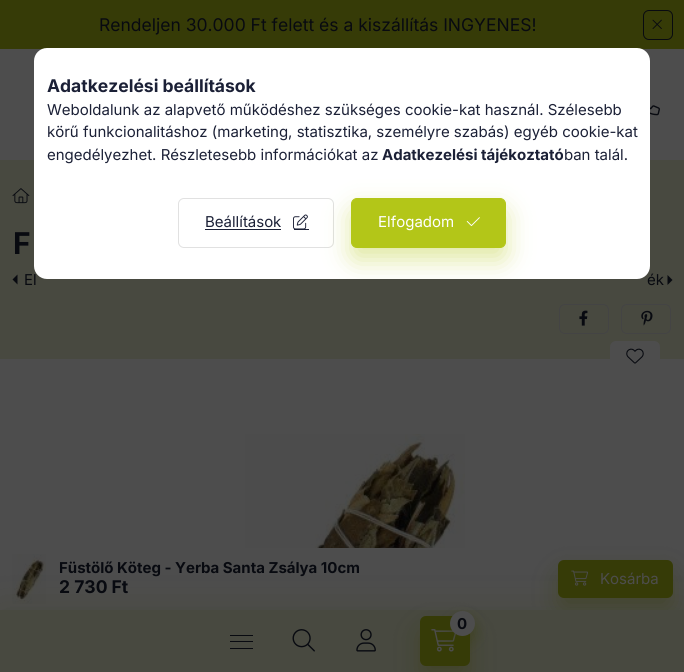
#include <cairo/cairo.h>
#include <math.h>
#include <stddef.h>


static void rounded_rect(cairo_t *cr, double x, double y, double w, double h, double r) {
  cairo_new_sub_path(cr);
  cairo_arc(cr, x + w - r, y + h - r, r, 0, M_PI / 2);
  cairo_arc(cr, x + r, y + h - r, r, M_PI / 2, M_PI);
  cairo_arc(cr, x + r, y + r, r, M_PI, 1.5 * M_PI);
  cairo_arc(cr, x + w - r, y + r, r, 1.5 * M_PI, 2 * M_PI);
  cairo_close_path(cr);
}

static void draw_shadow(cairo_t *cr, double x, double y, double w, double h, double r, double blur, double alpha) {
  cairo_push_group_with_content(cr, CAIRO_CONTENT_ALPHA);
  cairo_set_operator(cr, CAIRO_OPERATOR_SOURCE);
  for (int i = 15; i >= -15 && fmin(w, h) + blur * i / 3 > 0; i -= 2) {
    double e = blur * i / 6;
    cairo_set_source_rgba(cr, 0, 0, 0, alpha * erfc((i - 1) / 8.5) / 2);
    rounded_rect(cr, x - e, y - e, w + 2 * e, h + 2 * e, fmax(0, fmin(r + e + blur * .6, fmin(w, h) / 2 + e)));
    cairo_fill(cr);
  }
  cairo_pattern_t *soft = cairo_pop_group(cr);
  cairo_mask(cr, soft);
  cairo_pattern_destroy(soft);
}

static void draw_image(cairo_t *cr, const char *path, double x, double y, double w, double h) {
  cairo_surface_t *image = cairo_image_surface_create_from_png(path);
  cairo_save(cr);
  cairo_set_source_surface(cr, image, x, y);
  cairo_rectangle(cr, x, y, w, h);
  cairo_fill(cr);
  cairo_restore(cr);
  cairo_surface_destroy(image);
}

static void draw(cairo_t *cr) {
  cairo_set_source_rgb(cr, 72 / 255.0, 73 / 255.0, 64 / 255.0);
  cairo_paint(cr);
  cairo_set_source_rgb(cr, 54 / 255.0, 59 / 255.0, 7 / 255.0);
  cairo_rectangle(cr, 0, 0, 684, 49);
  cairo_fill(cr);
  rounded_rect(cr, 643.5, 10.5, 29, 29, 5.5);
  cairo_set_source_rgb(cr, 8 / 255.0, 10 / 255.0, 16 / 255.0);
  cairo_set_line_width(cr, 1);
  cairo_stroke(cr);
  draw_image(cr, "images/1.png", 652, 19, 10, 10);
  cairo_set_source_rgb(cr, 77 / 255.0, 77 / 255.0, 77 / 255.0);
  cairo_rectangle(cr, 0, 49, 684, 111);
  cairo_fill(cr);
  draw_image(cr, "images/2.png", 650, 105, 10, 11);
  draw_image(cr, "images/3.png", 12, 188, 18, 16);
  cairo_set_source_rgb(cr, 8 / 255.0, 10 / 255.0, 16 / 255.0);
  cairo_new_path(cr);
  cairo_move_to(cr, 17.5, 284.5);
  cairo_line_to(cr, 17.5, 274.5);
  cairo_line_to(cr, 12.5, 279.5);
  cairo_close_path(cr);
  cairo_fill(cr);
  cairo_new_path(cr);
  cairo_move_to(cr, 667.5, 285);
  cairo_line_to(cr, 667.5, 275);
  cairo_line_to(cr, 672.5, 280);
  cairo_close_path(cr);
  cairo_fill(cr);
  rounded_rect(cr, 559.5, 304.5, 49, 29, 5.5);
  cairo_set_source_rgb(cr, 68 / 255.0, 68 / 255.0, 68 / 255.0);
  cairo_stroke(cr);
  draw_image(cr, "images/4.png", 579, 310, 9, 16);
  rounded_rect(cr, 621.5, 304.5, 49, 29, 5.5);
  cairo_stroke(cr);
  draw_image(cr, "images/5.png", 641, 310, 12, 16);
  cairo_set_source_rgb(cr, 77 / 255.0, 77 / 255.0, 77 / 255.0);
  cairo_rectangle(cr, 0, 359, 684, 251);
  cairo_fill(cr);
  rounded_rect(cr, 610, 341, 50, 30, 6);
  cairo_fill(cr);
  draw_image(cr, "images/6.png", 626, 348, 18, 16);
  draw_image(cr, "images/7.png", 245, 434, 220, 114);
  draw_image(cr, "images/8.png", 12, 554, 34, 50);
  cairo_set_source_rgb(cr, 54 / 255.0, 59 / 255.0, 7 / 255.0);
  draw_shadow(cr, 558, 573, 115, 37, 6, 12.5, 0.4);
  cairo_set_source_rgb(cr, 54 / 255.0, 59 / 255.0, 7 / 255.0);
  rounded_rect(cr, 558, 560, 115, 38, 6);
  cairo_fill(cr);
  draw_image(cr, "images/9.png", 571, 570, 17, 16);
  cairo_set_source_rgb(cr, 54 / 255.0, 59 / 255.0, 7 / 255.0);
  draw_shadow(cr, 0, 610, 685, 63, 0, 19, 0.2);
  cairo_set_source_rgb(cr, 72 / 255.0, 73 / 255.0, 64 / 255.0);
  cairo_rectangle(cr, 0, 610, 684, 62);
  cairo_fill(cr);
  cairo_set_source_rgb(cr, 54 / 255.0, 59 / 255.0, 7 / 255.0);
  draw_shadow(cr, 420, 629, 50, 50, 6, 12.5, 0.4);
  cairo_set_source_rgb(cr, 54 / 255.0, 59 / 255.0, 7 / 255.0);
  rounded_rect(cr, 420, 616, 50, 50, 6);
  cairo_fill(cr);
  draw_image(cr, "images/10.png", 431, 629, 25, 23);
  cairo_set_source_rgb(cr, 54 / 255.0, 59 / 255.0, 7 / 255.0);
  draw_shadow(cr, 450, 618, 25, 25, 12.5, 6, 0.4);
  cairo_set_source_rgb(cr, 77 / 255.0, 77 / 255.0, 77 / 255.0);
  cairo_arc(cr, 462.5, 623.5, 12.5, 0, 2 * M_PI);
  cairo_fill(cr);
  cairo_set_source_rgb(cr, 8 / 255.0, 10 / 255.0, 16 / 255.0);
  cairo_rectangle(cr, 230, 635, 23, 1);
  cairo_fill(cr);
  cairo_rectangle(cr, 230, 641, 23, 1);
  cairo_fill(cr);
  cairo_rectangle(cr, 230, 648, 23, 1);
  cairo_fill(cr);
  draw_image(cr, "images/11.png", 292, 629, 23, 23);
  draw_image(cr, "images/12.png", 356, 629, 20, 23);
  cairo_select_font_face(cr, "Inter", CAIRO_FONT_SLANT_NORMAL, CAIRO_FONT_WEIGHT_NORMAL);
  cairo_set_font_size(cr, 17.5);
  cairo_move_to(cr, 99, 31);
  cairo_show_text(cr, "Rendeljen 30.000 Ft felett és a kiszállítás INGYENES!");
  cairo_select_font_face(cr, "Inter", CAIRO_FONT_SLANT_NORMAL, CAIRO_FONT_WEIGHT_BOLD);
  cairo_set_font_size(cr, 30);
  cairo_move_to(cr, 13, 254);
  cairo_show_text(cr, "F");
  cairo_select_font_face(cr, "Inter", CAIRO_FONT_SLANT_NORMAL, CAIRO_FONT_WEIGHT_NORMAL);
  cairo_set_font_size(cr, 15);
  cairo_move_to(cr, 24, 285);
  cairo_show_text(cr, "El");
  cairo_move_to(cr, 647, 285);
  cairo_show_text(cr, "ék");
  cairo_select_font_face(cr, "Inter", CAIRO_FONT_SLANT_NORMAL, CAIRO_FONT_WEIGHT_BOLD);
  cairo_move_to(cr, 59, 573);
  cairo_show_text(cr, "Füstölő Köteg - Yerba Santa Zsálya 10cm");
  cairo_set_font_size(cr, 17.5);
  cairo_move_to(cr, 59, 593);
  cairo_show_text(cr, "2 730 Ft");
  cairo_select_font_face(cr, "Inter", CAIRO_FONT_SLANT_NORMAL, CAIRO_FONT_WEIGHT_NORMAL);
  cairo_set_font_size(cr, 15);
  cairo_set_source_rgb(cr, 77 / 255.0, 77 / 255.0, 77 / 255.0);
  cairo_move_to(cr, 600, 584);
  cairo_show_text(cr, "Kosárba");
  cairo_select_font_face(cr, "Inter", CAIRO_FONT_SLANT_NORMAL, CAIRO_FONT_WEIGHT_BOLD);
  cairo_set_source_rgb(cr, 8 / 255.0, 10 / 255.0, 16 / 255.0);
  cairo_move_to(cr, 457, 629);
  cairo_show_text(cr, "0");
  cairo_set_source_rgb(cr, 1, 1, 1);
  rounded_rect(cr, 34, 48, 616, 231, 13);
  cairo_fill(cr);
  cairo_set_font_size(cr, 17.5);
  cairo_set_source_rgb(cr, 27 / 255.0, 32 / 255.0, 54 / 255.0);
  cairo_move_to(cr, 47, 92);
  cairo_show_text(cr, "Adatkezelési beállítások");
  cairo_select_font_face(cr, "Inter", CAIRO_FONT_SLANT_NORMAL, CAIRO_FONT_WEIGHT_NORMAL);
  cairo_set_font_size(cr, 15);
  cairo_move_to(cr, 47, 115);
  cairo_show_text(cr, "Weboldalunk az alapvető működéshez szükséges cookie-kat használ. Szélesebb");
  cairo_move_to(cr, 47, 137);
  cairo_show_text(cr, "körű funkcionalitáshoz (marketing, statisztika, személyre szabás) egyéb cookie-kat");
  cairo_move_to(cr, 47, 160);
  cairo_show_text(cr, "engedélyezhet. Részletesebb információkat az");
  cairo_select_font_face(cr, "Inter", CAIRO_FONT_SLANT_NORMAL, CAIRO_FONT_WEIGHT_BOLD);
  cairo_move_to(cr, 382, 160);
  cairo_show_text(cr, "Adatkezelési tájékoztató");
  cairo_select_font_face(cr, "Inter", CAIRO_FONT_SLANT_NORMAL, CAIRO_FONT_WEIGHT_NORMAL);
  cairo_move_to(cr, 564, 160);
  cairo_show_text(cr, "ban talál.");
  rounded_rect(cr, 178.5, 198.5, 155, 49, 5.5);
  cairo_set_source_rgb(cr, 225 / 255.0, 225 / 255.0, 225 / 255.0);
  cairo_stroke(cr);
  cairo_set_source_rgb(cr, 27 / 255.0, 32 / 255.0, 54 / 255.0);
  cairo_move_to(cr, 205, 227);
  cairo_show_text(cr, "Beállítások");
  cairo_rectangle(cr, 205, 229, 76, 1);
  cairo_fill(cr);
  draw_image(cr, "images/13.png", 293, 214, 15, 15);
  cairo_rectangle(cr, 294, 229, 15, 1);
  cairo_fill(cr);
  cairo_save(cr);
  rounded_rect(cr, 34, 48, 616, 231, 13);
  cairo_clip(cr);
  cairo_set_source_rgb(cr, 179 / 255.0, 198 / 255.0, 24 / 255.0);
  draw_shadow(cr, 351, 210, 155, 50, 6, 12.5, 0.4);
  cairo_restore(cr);
  cairo_set_source_rgb(cr, 179 / 255.0, 198 / 255.0, 24 / 255.0);
  rounded_rect(cr, 351.5, 198.5, 154, 49, 5.5);
  cairo_fill_preserve(cr);
  cairo_stroke(cr);
  cairo_set_source_rgb(cr, 1, 1, 1);
  cairo_move_to(cr, 378, 227);
  cairo_show_text(cr, "Elfogadom");
  draw_image(cr, "images/14.png", 466, 217, 14, 9);
}

int main(void) {
  cairo_surface_t *surface = cairo_image_surface_create(CAIRO_FORMAT_RGB24, 684, 672);
  cairo_t *cr = cairo_create(surface);
  cairo_font_options_t *options = cairo_font_options_create();
  cairo_font_options_set_hint_metrics(options, CAIRO_HINT_METRICS_OFF);
  cairo_font_options_set_hint_style(options, CAIRO_HINT_STYLE_NONE);
  cairo_set_font_options(cr, options);
  cairo_set_miter_limit(cr, 4);
  draw(cr);
  cairo_surface_write_to_png(surface, "out.png");
  cairo_font_options_destroy(options);
  cairo_destroy(cr);
  cairo_surface_destroy(surface);
  return 0;
}
